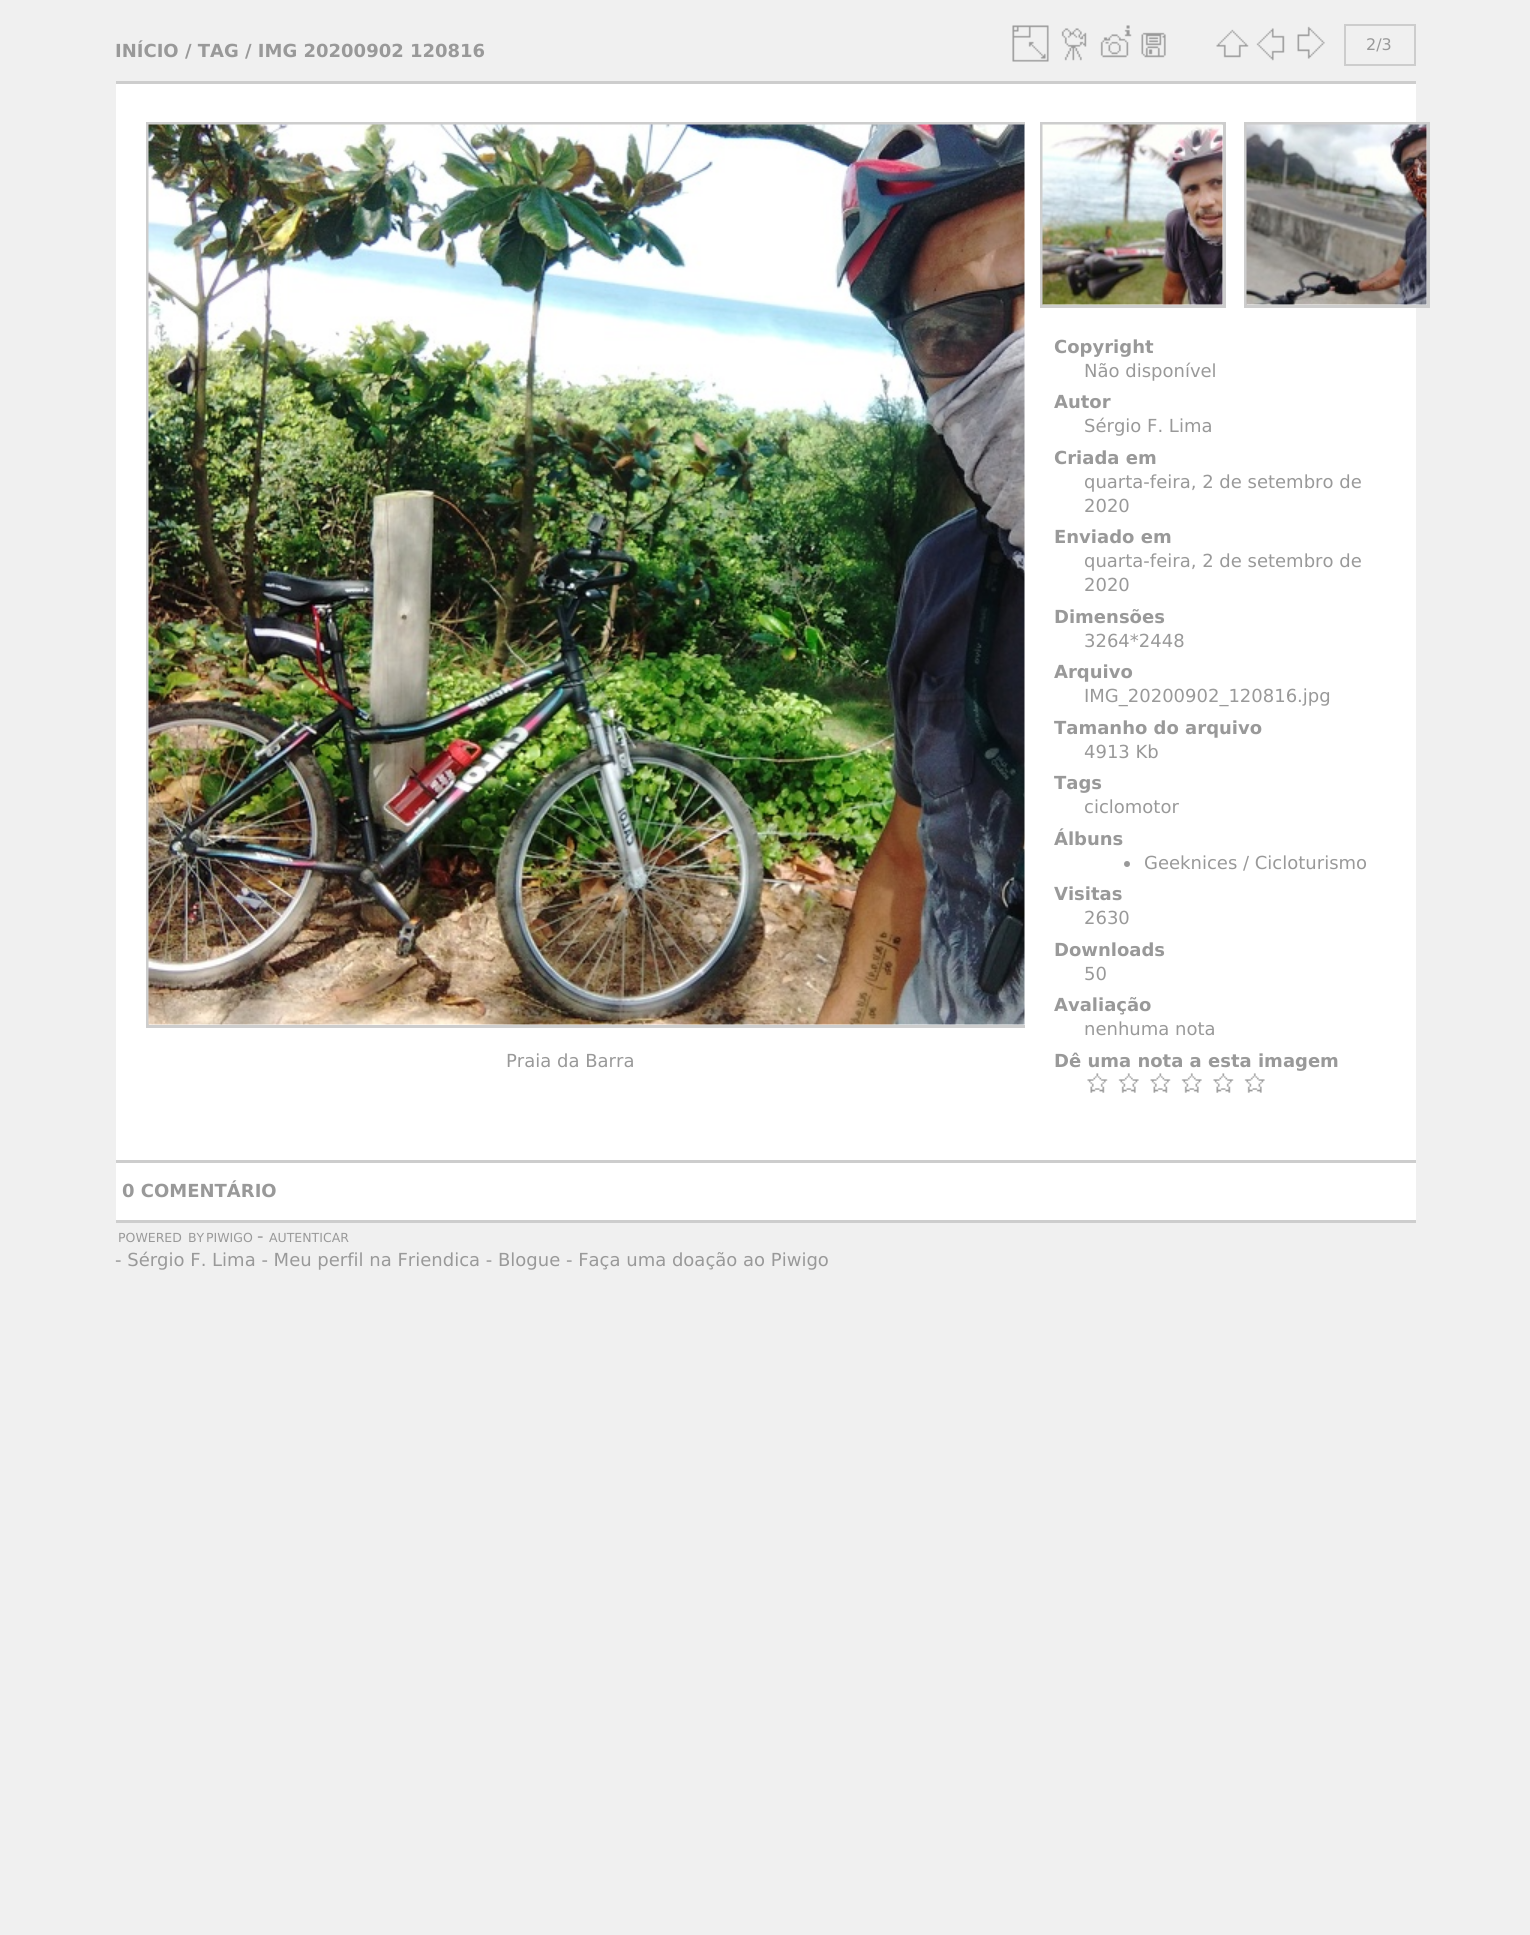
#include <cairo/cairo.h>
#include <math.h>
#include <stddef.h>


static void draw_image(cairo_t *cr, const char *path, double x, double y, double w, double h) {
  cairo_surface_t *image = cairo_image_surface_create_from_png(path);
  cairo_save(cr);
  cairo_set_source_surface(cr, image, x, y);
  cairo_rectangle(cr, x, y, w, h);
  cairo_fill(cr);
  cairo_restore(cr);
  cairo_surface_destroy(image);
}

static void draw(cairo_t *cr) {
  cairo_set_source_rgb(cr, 240 / 255.0, 240 / 255.0, 240 / 255.0);
  cairo_paint(cr);
  cairo_set_source_rgb(cr, 205 / 255.0, 205 / 255.0, 205 / 255.0);
  cairo_rectangle(cr, 116, 1220, 1300, 3);
  cairo_fill(cr);
  draw_image(cr, "images/1.png", 1012, 25, 37, 37);
  draw_image(cr, "images/2.png", 1061, 28, 26, 33);
  draw_image(cr, "images/3.png", 1100, 25, 32, 33);
  draw_image(cr, "images/4.png", 1141, 32, 25, 26);
  draw_image(cr, "images/5.png", 1216, 29, 33, 29);
  draw_image(cr, "images/6.png", 1256, 28, 29, 33);
  draw_image(cr, "images/7.png", 1297, 26, 28, 33);
  cairo_rectangle(cr, 1345, 25, 70, 40);
  cairo_stroke(cr);
  cairo_set_source_rgb(cr, 1, 1, 1);
  cairo_rectangle(cr, 116, 84, 1300, 1076);
  cairo_fill(cr);
  cairo_set_source_rgb(cr, 205 / 255.0, 205 / 255.0, 205 / 255.0);
  cairo_rectangle(cr, 116, 81, 1300, 3);
  cairo_fill(cr);
  cairo_set_source_rgb(cr, 153 / 255.0, 153 / 255.0, 153 / 255.0);
  cairo_arc(cr, 1127, 864, 3, 0, 2 * M_PI);
  cairo_fill(cr);
  draw_image(cr, "images/11.png", 1087, 1073, 21, 20);
  draw_image(cr, "images/12.png", 1118, 1073, 21, 20);
  draw_image(cr, "images/13.png", 1150, 1073, 21, 20);
  draw_image(cr, "images/12.png", 1181, 1073, 21, 20);
  draw_image(cr, "images/11.png", 1213, 1073, 21, 20);
  draw_image(cr, "images/12.png", 1244, 1073, 21, 20);
  cairo_set_source_rgb(cr, 1, 1, 1);
  cairo_rectangle(cr, 116, 1163, 1300, 57);
  cairo_fill(cr);
  cairo_set_source_rgb(cr, 205 / 255.0, 205 / 255.0, 205 / 255.0);
  cairo_rectangle(cr, 116, 1160, 1300, 3);
  cairo_fill(cr);
  cairo_select_font_face(cr, "DejaVu Sans", CAIRO_FONT_SLANT_NORMAL, CAIRO_FONT_WEIGHT_BOLD);
  cairo_set_font_size(cr, 18);
  cairo_set_source_rgb(cr, 153 / 255.0, 153 / 255.0, 153 / 255.0);
  cairo_move_to(cr, 115, 57);
  cairo_show_text(cr, "INÍCIO / TAG / IMG 20200902 120816");
  cairo_select_font_face(cr, "DejaVu Sans", CAIRO_FONT_SLANT_NORMAL, CAIRO_FONT_WEIGHT_NORMAL);
  cairo_set_font_size(cr, 16);
  cairo_move_to(cr, 1366, 50);
  cairo_show_text(cr, "2/3");
  cairo_set_font_size(cr, 18);
  cairo_move_to(cr, 506, 1067);
  cairo_show_text(cr, "Praia da Barra");
  cairo_select_font_face(cr, "DejaVu Sans", CAIRO_FONT_SLANT_NORMAL, CAIRO_FONT_WEIGHT_BOLD);
  cairo_move_to(cr, 1054, 353);
  cairo_show_text(cr, "Copyright");
  cairo_select_font_face(cr, "DejaVu Sans", CAIRO_FONT_SLANT_NORMAL, CAIRO_FONT_WEIGHT_NORMAL);
  cairo_move_to(cr, 1084, 377);
  cairo_show_text(cr, "Não disponível");
  cairo_select_font_face(cr, "DejaVu Sans", CAIRO_FONT_SLANT_NORMAL, CAIRO_FONT_WEIGHT_BOLD);
  cairo_move_to(cr, 1054, 408);
  cairo_show_text(cr, "Autor");
  cairo_select_font_face(cr, "DejaVu Sans", CAIRO_FONT_SLANT_NORMAL, CAIRO_FONT_WEIGHT_NORMAL);
  cairo_move_to(cr, 1084, 432);
  cairo_show_text(cr, "Sérgio F. Lima");
  cairo_select_font_face(cr, "DejaVu Sans", CAIRO_FONT_SLANT_NORMAL, CAIRO_FONT_WEIGHT_BOLD);
  cairo_move_to(cr, 1054, 464);
  cairo_show_text(cr, "Criada em");
  cairo_select_font_face(cr, "DejaVu Sans", CAIRO_FONT_SLANT_NORMAL, CAIRO_FONT_WEIGHT_NORMAL);
  cairo_move_to(cr, 1084, 488);
  cairo_show_text(cr, "quarta-feira, 2 de setembro de");
  cairo_move_to(cr, 1084, 512);
  cairo_show_text(cr, "2020");
  cairo_select_font_face(cr, "DejaVu Sans", CAIRO_FONT_SLANT_NORMAL, CAIRO_FONT_WEIGHT_BOLD);
  cairo_move_to(cr, 1054, 543);
  cairo_show_text(cr, "Enviado em");
  cairo_select_font_face(cr, "DejaVu Sans", CAIRO_FONT_SLANT_NORMAL, CAIRO_FONT_WEIGHT_NORMAL);
  cairo_move_to(cr, 1084, 567);
  cairo_show_text(cr, "quarta-feira, 2 de setembro de");
  cairo_move_to(cr, 1084, 591);
  cairo_show_text(cr, "2020");
  cairo_select_font_face(cr, "DejaVu Sans", CAIRO_FONT_SLANT_NORMAL, CAIRO_FONT_WEIGHT_BOLD);
  cairo_move_to(cr, 1054, 623);
  cairo_show_text(cr, "Dimensões");
  cairo_select_font_face(cr, "DejaVu Sans", CAIRO_FONT_SLANT_NORMAL, CAIRO_FONT_WEIGHT_NORMAL);
  cairo_move_to(cr, 1084, 647);
  cairo_show_text(cr, "3264*2448");
  cairo_select_font_face(cr, "DejaVu Sans", CAIRO_FONT_SLANT_NORMAL, CAIRO_FONT_WEIGHT_BOLD);
  cairo_move_to(cr, 1054, 678);
  cairo_show_text(cr, "Arquivo");
  cairo_select_font_face(cr, "DejaVu Sans", CAIRO_FONT_SLANT_NORMAL, CAIRO_FONT_WEIGHT_NORMAL);
  cairo_move_to(cr, 1084, 702);
  cairo_show_text(cr, "IMG_20200902_120816.jpg");
  cairo_select_font_face(cr, "DejaVu Sans", CAIRO_FONT_SLANT_NORMAL, CAIRO_FONT_WEIGHT_BOLD);
  cairo_move_to(cr, 1054, 734);
  cairo_show_text(cr, "Tamanho do arquivo");
  cairo_select_font_face(cr, "DejaVu Sans", CAIRO_FONT_SLANT_NORMAL, CAIRO_FONT_WEIGHT_NORMAL);
  cairo_move_to(cr, 1084, 758);
  cairo_show_text(cr, "4913 Kb");
  cairo_select_font_face(cr, "DejaVu Sans", CAIRO_FONT_SLANT_NORMAL, CAIRO_FONT_WEIGHT_BOLD);
  cairo_move_to(cr, 1054, 789);
  cairo_show_text(cr, "Tags");
  cairo_select_font_face(cr, "DejaVu Sans", CAIRO_FONT_SLANT_NORMAL, CAIRO_FONT_WEIGHT_NORMAL);
  cairo_move_to(cr, 1084, 813);
  cairo_show_text(cr, "ciclomotor");
  cairo_select_font_face(cr, "DejaVu Sans", CAIRO_FONT_SLANT_NORMAL, CAIRO_FONT_WEIGHT_BOLD);
  cairo_move_to(cr, 1054, 845);
  cairo_show_text(cr, "Álbuns");
  cairo_select_font_face(cr, "DejaVu Sans", CAIRO_FONT_SLANT_NORMAL, CAIRO_FONT_WEIGHT_NORMAL);
  cairo_move_to(cr, 1144, 869);
  cairo_show_text(cr, "Geeknices / Cicloturismo");
  cairo_select_font_face(cr, "DejaVu Sans", CAIRO_FONT_SLANT_NORMAL, CAIRO_FONT_WEIGHT_BOLD);
  cairo_move_to(cr, 1054, 900);
  cairo_show_text(cr, "Visitas");
  cairo_select_font_face(cr, "DejaVu Sans", CAIRO_FONT_SLANT_NORMAL, CAIRO_FONT_WEIGHT_NORMAL);
  cairo_move_to(cr, 1084, 924);
  cairo_show_text(cr, "2630");
  cairo_select_font_face(cr, "DejaVu Sans", CAIRO_FONT_SLANT_NORMAL, CAIRO_FONT_WEIGHT_BOLD);
  cairo_move_to(cr, 1054, 956);
  cairo_show_text(cr, "Downloads");
  cairo_select_font_face(cr, "DejaVu Sans", CAIRO_FONT_SLANT_NORMAL, CAIRO_FONT_WEIGHT_NORMAL);
  cairo_move_to(cr, 1084, 980);
  cairo_show_text(cr, "50");
  cairo_select_font_face(cr, "DejaVu Sans", CAIRO_FONT_SLANT_NORMAL, CAIRO_FONT_WEIGHT_BOLD);
  cairo_move_to(cr, 1054, 1011);
  cairo_show_text(cr, "Avaliação");
  cairo_select_font_face(cr, "DejaVu Sans", CAIRO_FONT_SLANT_NORMAL, CAIRO_FONT_WEIGHT_NORMAL);
  cairo_move_to(cr, 1084, 1035);
  cairo_show_text(cr, "nenhuma nota");
  cairo_save(cr);
  cairo_rectangle(cr, 116, 107, 909, 990);
  cairo_clip(cr);
  cairo_rectangle(cr, 147.5, 123.5, 1203, 903);
  cairo_set_source_rgb(cr, 205 / 255.0, 205 / 255.0, 205 / 255.0);
  cairo_set_line_width(cr, 3);
  cairo_stroke(cr);
  cairo_restore(cr);
  cairo_rectangle(cr, 1245.5, 123.5, 183, 183);
  cairo_set_source_rgb(cr, 205 / 255.0, 205 / 255.0, 205 / 255.0);
  cairo_set_line_width(cr, 3);
  cairo_stroke(cr);
  draw_image(cr, "images/10.png", 1246, 124, 181, 181);
  cairo_rectangle(cr, 1041.5, 123.5, 183, 183);
  cairo_stroke(cr);
  draw_image(cr, "images/9.png", 1042, 124, 181, 181);
  draw_image(cr, "images/8.png", 148, 124, 877, 901);
  cairo_select_font_face(cr, "DejaVu Sans", CAIRO_FONT_SLANT_NORMAL, CAIRO_FONT_WEIGHT_BOLD);
  cairo_set_source_rgb(cr, 153 / 255.0, 153 / 255.0, 153 / 255.0);
  cairo_move_to(cr, 1054, 1067);
  cairo_show_text(cr, "Dê uma nota a esta imagem");
  cairo_move_to(cr, 122, 1197);
  cairo_show_text(cr, "0 COMENTÁRIO");
  cairo_select_font_face(cr, "DejaVu Sans", CAIRO_FONT_SLANT_NORMAL, CAIRO_FONT_WEIGHT_NORMAL);
  cairo_set_font_size(cr, 12.5);
  cairo_move_to(cr, 118, 1242);
  cairo_show_text(cr, "POWERED");
  cairo_move_to(cr, 188, 1242);
  cairo_show_text(cr, "BY");
  cairo_move_to(cr, 206, 1242);
  cairo_show_text(cr, "PIWIGO");
  cairo_set_font_size(cr, 18);
  cairo_move_to(cr, 257, 1242);
  cairo_show_text(cr, "-");
  cairo_set_font_size(cr, 12.5);
  cairo_move_to(cr, 269, 1242);
  cairo_show_text(cr, "AUTENTICAR");
  cairo_set_font_size(cr, 18);
  cairo_move_to(cr, 115, 1266);
  cairo_show_text(cr, "- Sérgio F. Lima - Meu perfil na Friendica - Blogue - Faça uma doação ao Piwigo");
}

int main(void) {
  cairo_surface_t *surface = cairo_image_surface_create(CAIRO_FORMAT_RGB24, 1530, 1935);
  cairo_t *cr = cairo_create(surface);
  cairo_font_options_t *options = cairo_font_options_create();
  cairo_font_options_set_hint_metrics(options, CAIRO_HINT_METRICS_OFF);
  cairo_font_options_set_hint_style(options, CAIRO_HINT_STYLE_NONE);
  cairo_set_font_options(cr, options);
  cairo_set_miter_limit(cr, 4);
  draw(cr);
  cairo_surface_write_to_png(surface, "out.png");
  cairo_font_options_destroy(options);
  cairo_destroy(cr);
  cairo_surface_destroy(surface);
  return 0;
}
